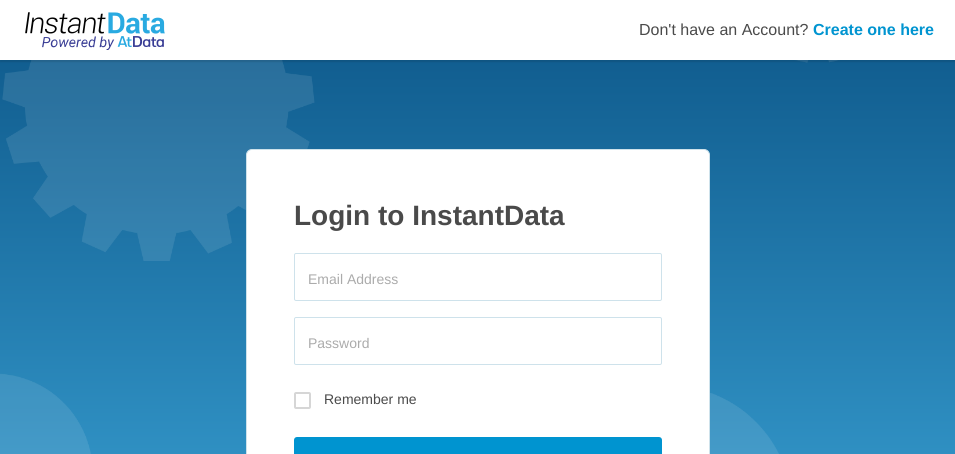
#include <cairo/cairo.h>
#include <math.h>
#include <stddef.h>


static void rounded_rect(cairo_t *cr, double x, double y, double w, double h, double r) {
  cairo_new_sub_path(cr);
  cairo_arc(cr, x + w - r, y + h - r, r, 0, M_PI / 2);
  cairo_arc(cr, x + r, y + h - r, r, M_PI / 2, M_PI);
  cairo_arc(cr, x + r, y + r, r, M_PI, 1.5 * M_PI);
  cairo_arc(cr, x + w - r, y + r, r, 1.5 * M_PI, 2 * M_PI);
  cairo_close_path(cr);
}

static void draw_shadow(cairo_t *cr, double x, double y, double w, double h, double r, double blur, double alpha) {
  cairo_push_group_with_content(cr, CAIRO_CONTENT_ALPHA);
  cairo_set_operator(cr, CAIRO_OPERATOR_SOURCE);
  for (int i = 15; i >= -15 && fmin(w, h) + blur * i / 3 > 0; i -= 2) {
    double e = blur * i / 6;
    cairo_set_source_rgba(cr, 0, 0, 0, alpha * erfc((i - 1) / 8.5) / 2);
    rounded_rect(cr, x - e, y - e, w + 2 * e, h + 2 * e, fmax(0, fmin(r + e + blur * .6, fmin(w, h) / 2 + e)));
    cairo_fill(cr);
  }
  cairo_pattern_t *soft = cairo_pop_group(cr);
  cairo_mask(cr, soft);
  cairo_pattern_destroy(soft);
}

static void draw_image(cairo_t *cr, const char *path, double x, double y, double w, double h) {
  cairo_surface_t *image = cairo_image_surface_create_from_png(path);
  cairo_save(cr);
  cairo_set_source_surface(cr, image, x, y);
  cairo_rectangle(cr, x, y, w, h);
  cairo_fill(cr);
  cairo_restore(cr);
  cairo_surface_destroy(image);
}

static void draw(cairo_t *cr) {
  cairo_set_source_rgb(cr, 1, 1, 1);
  cairo_paint(cr);
  draw_image(cr, "images/1.png", 0, 60, 955, 394);
  cairo_set_source_rgb(cr, 0, 0, 0);
  draw_shadow(cr, 0, 2, 955, 60, 0, 0.5, 0.1);
  cairo_set_source_rgb(cr, 1, 1, 1);
  cairo_rectangle(cr, 0, 1, 955, 59);
  cairo_fill(cr);
  draw_image(cr, "images/2.png", 25, 12, 140, 38);
  rounded_rect(cr, 246.5, 149.5, 463, 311, 5.5);
  cairo_fill_preserve(cr);
  cairo_set_source_rgb(cr, 206 / 255.0, 226 / 255.0, 235 / 255.0);
  cairo_set_line_width(cr, 1);
  cairo_stroke(cr);
  rounded_rect(cr, 294.5, 253.5, 367, 47, 1.5);
  cairo_stroke(cr);
  rounded_rect(cr, 294.5, 317.5, 367, 47, 1.5);
  cairo_stroke(cr);
  rounded_rect(cr, 295, 393, 15, 15, 1);
  cairo_set_source_rgb(cr, 214 / 255.0, 214 / 255.0, 214 / 255.0);
  cairo_set_line_width(cr, 2);
  cairo_stroke(cr);
  cairo_set_source_rgb(cr, 0, 148 / 255.0, 208 / 255.0);
  rounded_rect(cr, 294, 437, 368, 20, 3);
  cairo_fill(cr);
  cairo_select_font_face(cr, "Liberation Sans", CAIRO_FONT_SLANT_NORMAL, CAIRO_FONT_WEIGHT_NORMAL);
  cairo_set_font_size(cr, 16);
  cairo_set_source_rgb(cr, 74 / 255.0, 74 / 255.0, 74 / 255.0);
  cairo_move_to(cr, 639, 35);
  cairo_show_text(cr, "Don't have an Account?");
  cairo_select_font_face(cr, "Liberation Sans", CAIRO_FONT_SLANT_NORMAL, CAIRO_FONT_WEIGHT_BOLD);
  cairo_set_source_rgb(cr, 0, 148 / 255.0, 208 / 255.0);
  cairo_move_to(cr, 813, 35);
  cairo_show_text(cr, "Create one here");
  cairo_set_font_size(cr, 28);
  cairo_set_source_rgb(cr, 74 / 255.0, 74 / 255.0, 74 / 255.0);
  cairo_move_to(cr, 294, 225);
  cairo_show_text(cr, "Login to InstantData");
  cairo_select_font_face(cr, "Liberation Sans", CAIRO_FONT_SLANT_NORMAL, CAIRO_FONT_WEIGHT_NORMAL);
  cairo_set_font_size(cr, 14);
  cairo_set_source_rgb(cr, 171 / 255.0, 171 / 255.0, 171 / 255.0);
  cairo_move_to(cr, 308, 284);
  cairo_show_text(cr, "Email Address");
  cairo_move_to(cr, 308, 348);
  cairo_show_text(cr, "Password");
  cairo_set_source_rgb(cr, 74 / 255.0, 74 / 255.0, 74 / 255.0);
  cairo_move_to(cr, 324, 404);
  cairo_show_text(cr, "Remember me");
}

int main(void) {
  cairo_surface_t *surface = cairo_image_surface_create(CAIRO_FORMAT_RGB24, 955, 454);
  cairo_t *cr = cairo_create(surface);
  cairo_font_options_t *options = cairo_font_options_create();
  cairo_font_options_set_hint_metrics(options, CAIRO_HINT_METRICS_OFF);
  cairo_font_options_set_hint_style(options, CAIRO_HINT_STYLE_NONE);
  cairo_set_font_options(cr, options);
  cairo_set_miter_limit(cr, 4);
  draw(cr);
  cairo_surface_write_to_png(surface, "out.png");
  cairo_font_options_destroy(options);
  cairo_destroy(cr);
  cairo_surface_destroy(surface);
  return 0;
}
